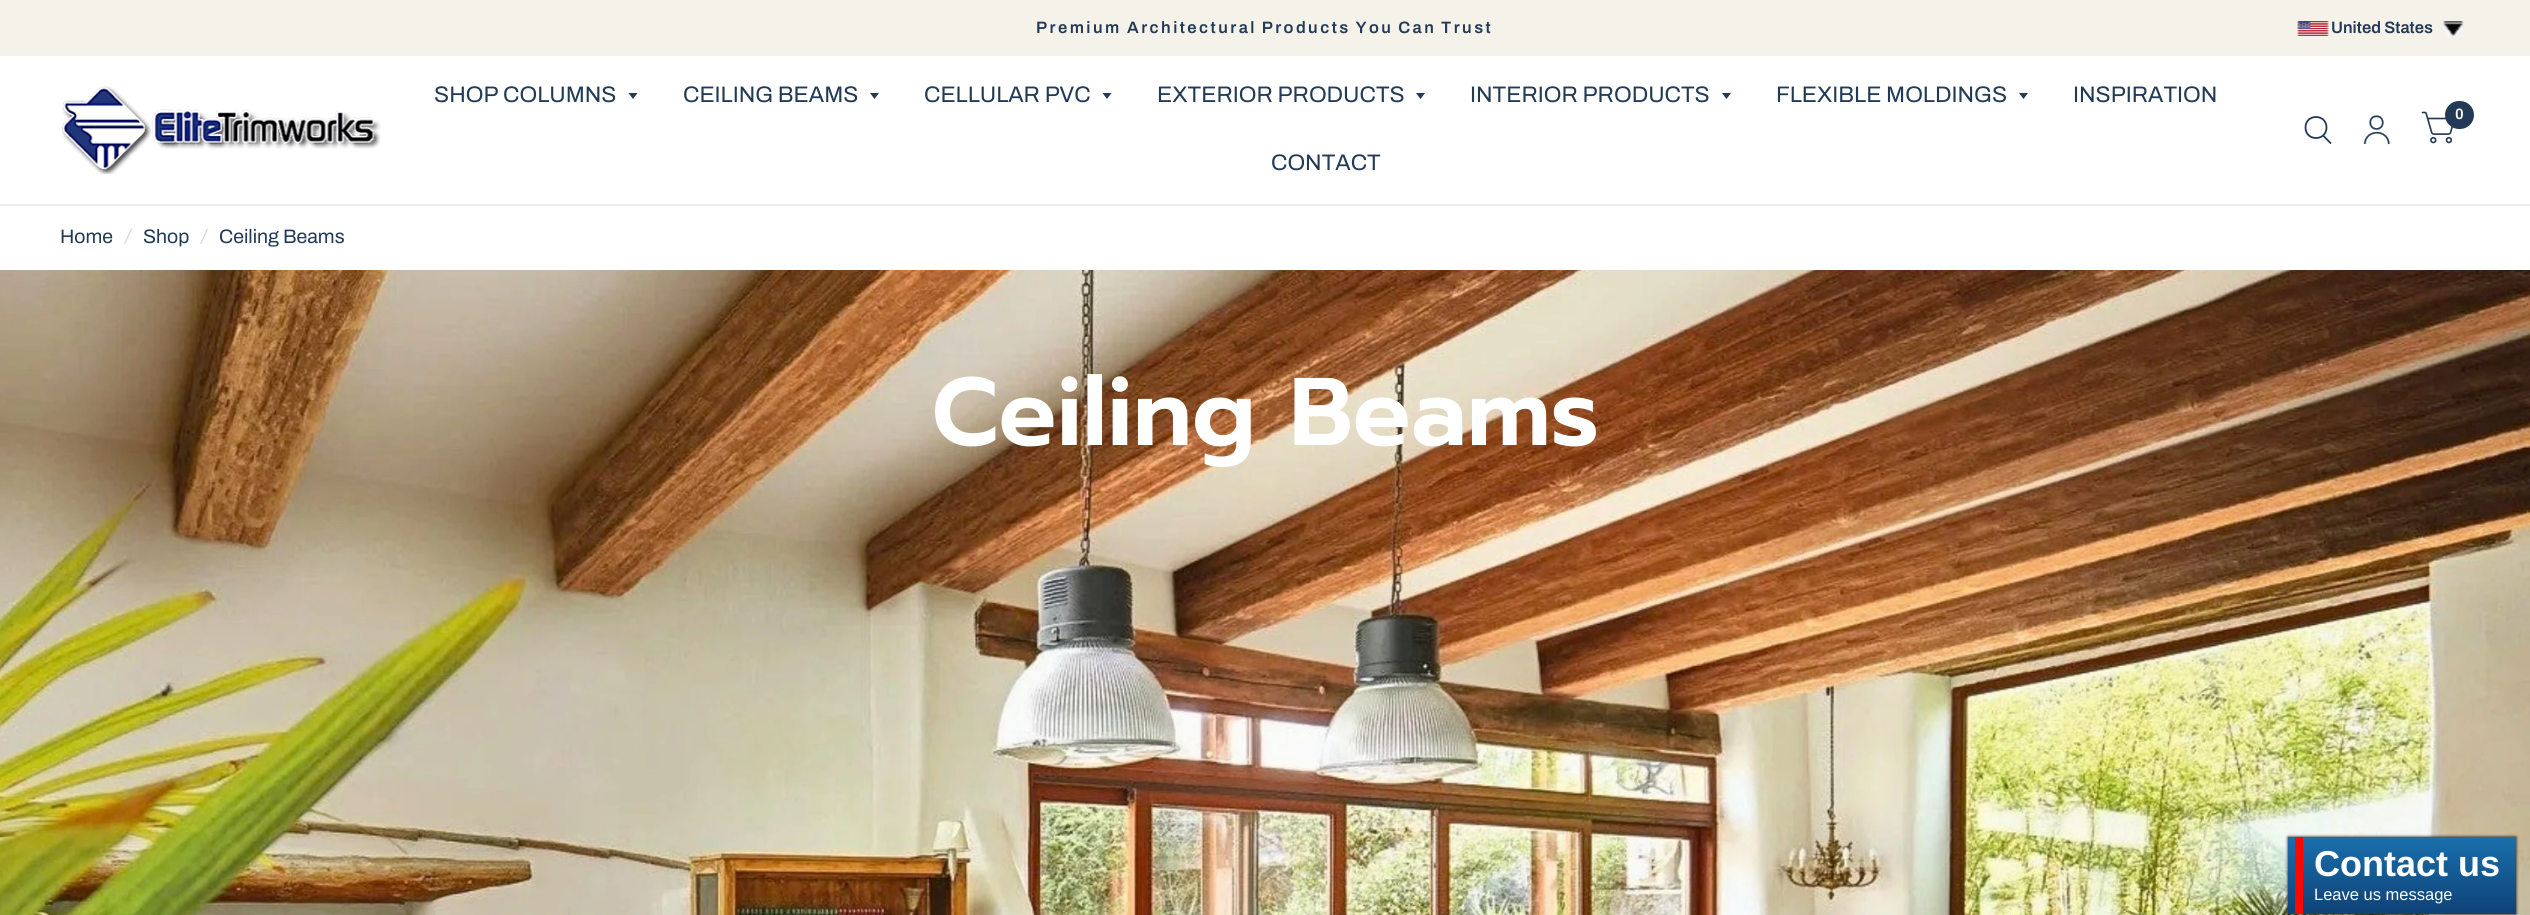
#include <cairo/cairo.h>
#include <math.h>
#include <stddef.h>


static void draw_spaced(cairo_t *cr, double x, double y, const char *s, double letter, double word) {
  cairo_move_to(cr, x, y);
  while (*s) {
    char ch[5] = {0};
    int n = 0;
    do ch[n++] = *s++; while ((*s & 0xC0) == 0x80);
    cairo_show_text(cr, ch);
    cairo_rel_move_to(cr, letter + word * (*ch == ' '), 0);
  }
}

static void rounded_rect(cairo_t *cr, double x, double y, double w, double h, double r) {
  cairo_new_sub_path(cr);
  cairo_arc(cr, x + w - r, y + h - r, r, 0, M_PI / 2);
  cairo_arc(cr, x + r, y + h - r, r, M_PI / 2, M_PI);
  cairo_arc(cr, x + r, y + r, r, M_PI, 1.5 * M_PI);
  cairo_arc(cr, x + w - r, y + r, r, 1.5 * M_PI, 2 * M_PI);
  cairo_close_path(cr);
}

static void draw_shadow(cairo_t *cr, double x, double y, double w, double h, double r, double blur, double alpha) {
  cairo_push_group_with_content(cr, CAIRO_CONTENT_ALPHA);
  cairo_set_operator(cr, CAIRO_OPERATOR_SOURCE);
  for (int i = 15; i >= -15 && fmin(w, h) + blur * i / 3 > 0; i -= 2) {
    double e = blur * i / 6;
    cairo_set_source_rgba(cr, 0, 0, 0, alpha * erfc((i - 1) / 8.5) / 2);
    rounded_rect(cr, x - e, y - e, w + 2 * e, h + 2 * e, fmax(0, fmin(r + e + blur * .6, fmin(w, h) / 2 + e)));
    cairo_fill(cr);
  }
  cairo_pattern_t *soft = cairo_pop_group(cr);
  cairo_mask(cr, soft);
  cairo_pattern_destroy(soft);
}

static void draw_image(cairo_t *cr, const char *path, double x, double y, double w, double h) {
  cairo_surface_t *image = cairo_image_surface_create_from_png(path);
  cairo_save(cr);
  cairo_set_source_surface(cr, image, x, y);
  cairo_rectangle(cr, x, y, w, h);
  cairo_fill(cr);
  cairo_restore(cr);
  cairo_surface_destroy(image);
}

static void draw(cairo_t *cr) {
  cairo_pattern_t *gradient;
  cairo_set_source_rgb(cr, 1, 1, 1);
  cairo_paint(cr);
  cairo_set_source_rgb(cr, 245 / 255.0, 242 / 255.0, 234 / 255.0);
  cairo_rectangle(cr, 0, 0, 2530, 56);
  cairo_fill(cr);
  draw_image(cr, "images/1.png", 2297, 21, 32, 15);
  draw_image(cr, "images/2.png", 2443, 21, 21, 15);
  cairo_set_source_rgb(cr, 238 / 255.0, 238 / 255.0, 238 / 255.0);
  cairo_rectangle(cr, 0, 204, 2530, 2);
  cairo_fill(cr);
  draw_image(cr, "images/3.png", 62, 86, 319, 88);
  cairo_set_source_rgb(cr, 34 / 255.0, 58 / 255.0, 86 / 255.0);
  cairo_new_path(cr);
  cairo_move_to(cr, 628.5, 93);
  cairo_line_to(cr, 637.5, 93);
  cairo_line_to(cr, 633, 99);
  cairo_close_path(cr);
  cairo_fill(cr);
  cairo_new_path(cr);
  cairo_move_to(cr, 870, 93);
  cairo_line_to(cr, 879, 93);
  cairo_line_to(cr, 874.5, 99);
  cairo_close_path(cr);
  cairo_fill(cr);
  cairo_new_path(cr);
  cairo_move_to(cr, 1102.5, 93);
  cairo_line_to(cr, 1111.5, 93);
  cairo_line_to(cr, 1107, 99);
  cairo_close_path(cr);
  cairo_fill(cr);
  cairo_new_path(cr);
  cairo_move_to(cr, 1416, 93);
  cairo_line_to(cr, 1425, 93);
  cairo_line_to(cr, 1420.5, 99);
  cairo_close_path(cr);
  cairo_fill(cr);
  cairo_new_path(cr);
  cairo_move_to(cr, 1722, 93);
  cairo_line_to(cr, 1731, 93);
  cairo_line_to(cr, 1726.5, 99);
  cairo_close_path(cr);
  cairo_fill(cr);
  cairo_new_path(cr);
  cairo_move_to(cr, 2019, 93);
  cairo_line_to(cr, 2028, 93);
  cairo_line_to(cr, 2023.5, 99);
  cairo_close_path(cr);
  cairo_fill(cr);
  cairo_new_path(cr);
  cairo_move_to(cr, 2323.5, 136);
  cairo_line_to(cr, 2330.5, 143);
  cairo_move_to(cr, 2326.5, 127.5);
  cairo_curve_to(cr, 2326.5, 141.5, 2305.5, 141.5, 2305.5, 127.5);
  cairo_curve_to(cr, 2305.5, 113.5, 2326.5, 113.5, 2326.5, 127.5);
  cairo_close_path(cr);
  cairo_set_line_width(cr, 1.8);
  cairo_set_line_cap(cr, CAIRO_LINE_CAP_ROUND);
  cairo_set_line_join(cr, CAIRO_LINE_JOIN_ROUND);
  cairo_stroke(cr);
  draw_image(cr, "images/4.png", 2363, 115, 27, 30);
  draw_image(cr, "images/5.png", 2421, 111, 32, 33);
  rounded_rect(cr, 2445, 101, 29, 28, 14);
  cairo_fill(cr);
  draw_image(cr, "images/6.png", 0, 270, 2530, 645);
  cairo_set_source_rgb(cr, 0, 0, 0);
  draw_shadow(cr, 2288, 837, 228, 77, 0, 1.5, 1);
  gradient = cairo_pattern_create_linear(2402, 837, 2402, 914);
  cairo_pattern_add_color_stop_rgba(gradient, 0, 25 / 255.0, 111 / 255.0, 172 / 255.0, 1);
  cairo_pattern_add_color_stop_rgba(gradient, 1, 15 / 255.0, 66 / 255.0, 119 / 255.0, 1);
  cairo_set_source(cr, gradient);
  cairo_pattern_destroy(gradient);
  cairo_rectangle(cr, 2288, 837, 228, 77);
  cairo_fill(cr);
  cairo_set_source_rgb(cr, 254 / 255.0, 6 / 255.0, 0);
  cairo_rectangle(cr, 2295, 837, 8, 77);
  cairo_fill(cr);
  cairo_select_font_face(cr, "Archivo SemiBold", CAIRO_FONT_SLANT_NORMAL, CAIRO_FONT_WEIGHT_NORMAL);
  cairo_set_font_size(cr, 16.5);
  cairo_set_source_rgb(cr, 34 / 255.0, 58 / 255.0, 86 / 255.0);
  draw_spaced(cr, 1036, 33, "Premium", 2.45, 0);
  draw_spaced(cr, 1127, 33, "Architectural Products You Can Trust", 2.45, -1);
  cairo_move_to(cr, 2331, 33);
  cairo_show_text(cr, "United States");
  cairo_select_font_face(cr, "Archivo", CAIRO_FONT_SLANT_NORMAL, CAIRO_FONT_WEIGHT_NORMAL);
  cairo_set_font_size(cr, 22.5);
  cairo_move_to(cr, 434, 102);
  cairo_show_text(cr, "SHOP COLUMNS");
  cairo_move_to(cr, 683, 102);
  cairo_show_text(cr, "CEILING BEAMS");
  cairo_move_to(cr, 924, 102);
  cairo_show_text(cr, "CELLULAR PVC");
  cairo_move_to(cr, 1157, 102);
  cairo_show_text(cr, "EXTERIOR PRODUCTS");
  cairo_move_to(cr, 1470, 102);
  cairo_show_text(cr, "INTERIOR PRODUCTS");
  cairo_move_to(cr, 1776, 102);
  cairo_show_text(cr, "FLEXIBLE MOLDINGS");
  cairo_move_to(cr, 2073, 102);
  cairo_show_text(cr, "INSPIRATION");
  cairo_move_to(cr, 1271, 170);
  cairo_show_text(cr, "CONTACT");
  cairo_select_font_face(cr, "Archivo SemiBold", CAIRO_FONT_SLANT_NORMAL, CAIRO_FONT_WEIGHT_NORMAL);
  cairo_set_font_size(cr, 15);
  cairo_set_source_rgb(cr, 1, 1, 1);
  cairo_move_to(cr, 2455, 119);
  cairo_show_text(cr, "0");
  cairo_select_font_face(cr, "Archivo", CAIRO_FONT_SLANT_NORMAL, CAIRO_FONT_WEIGHT_NORMAL);
  cairo_set_font_size(cr, 19.5);
  cairo_set_source_rgb(cr, 34 / 255.0, 58 / 255.0, 86 / 255.0);
  cairo_move_to(cr, 60, 243);
  cairo_show_text(cr, "Home");
  cairo_select_font_face(cr, "Archivo", CAIRO_FONT_SLANT_ITALIC, CAIRO_FONT_WEIGHT_NORMAL);
  cairo_set_source_rgb(cr, 211 / 255.0, 216 / 255.0, 221 / 255.0);
  cairo_move_to(cr, 125, 243);
  cairo_show_text(cr, "/");
  cairo_select_font_face(cr, "Archivo", CAIRO_FONT_SLANT_NORMAL, CAIRO_FONT_WEIGHT_NORMAL);
  cairo_set_source_rgb(cr, 34 / 255.0, 58 / 255.0, 86 / 255.0);
  cairo_move_to(cr, 143, 243);
  cairo_show_text(cr, "Shop");
  cairo_select_font_face(cr, "Archivo", CAIRO_FONT_SLANT_ITALIC, CAIRO_FONT_WEIGHT_NORMAL);
  cairo_set_source_rgb(cr, 211 / 255.0, 216 / 255.0, 221 / 255.0);
  cairo_move_to(cr, 201, 243);
  cairo_show_text(cr, "/");
  cairo_select_font_face(cr, "Archivo", CAIRO_FONT_SLANT_NORMAL, CAIRO_FONT_WEIGHT_NORMAL);
  cairo_set_source_rgb(cr, 34 / 255.0, 58 / 255.0, 86 / 255.0);
  cairo_move_to(cr, 219, 243);
  cairo_show_text(cr, "Ceiling Beams");
  cairo_select_font_face(cr, "Prompt SemiBold", CAIRO_FONT_SLANT_NORMAL, CAIRO_FONT_WEIGHT_NORMAL);
  cairo_set_font_size(cr, 96);
  cairo_set_source_rgb(cr, 1, 1, 1);
  cairo_move_to(cr, 932, 445);
  cairo_show_text(cr, "Ceiling Beams");
  cairo_select_font_face(cr, "Liberation Sans", CAIRO_FONT_SLANT_NORMAL, CAIRO_FONT_WEIGHT_BOLD);
  cairo_set_font_size(cr, 36);
  cairo_move_to(cr, 2314, 876);
  cairo_show_text(cr, "Contact us");
  cairo_select_font_face(cr, "Liberation Sans", CAIRO_FONT_SLANT_NORMAL, CAIRO_FONT_WEIGHT_NORMAL);
  cairo_set_font_size(cr, 16.5);
  cairo_move_to(cr, 2314, 900);
  cairo_show_text(cr, "Leave us message");
}

int main(void) {
  cairo_surface_t *surface = cairo_image_surface_create(CAIRO_FORMAT_RGB24, 2530, 915);
  cairo_t *cr = cairo_create(surface);
  cairo_font_options_t *options = cairo_font_options_create();
  cairo_font_options_set_hint_metrics(options, CAIRO_HINT_METRICS_OFF);
  cairo_font_options_set_hint_style(options, CAIRO_HINT_STYLE_NONE);
  cairo_set_font_options(cr, options);
  cairo_set_miter_limit(cr, 4);
  draw(cr);
  cairo_surface_write_to_png(surface, "out.png");
  cairo_font_options_destroy(options);
  cairo_destroy(cr);
  cairo_surface_destroy(surface);
  return 0;
}
